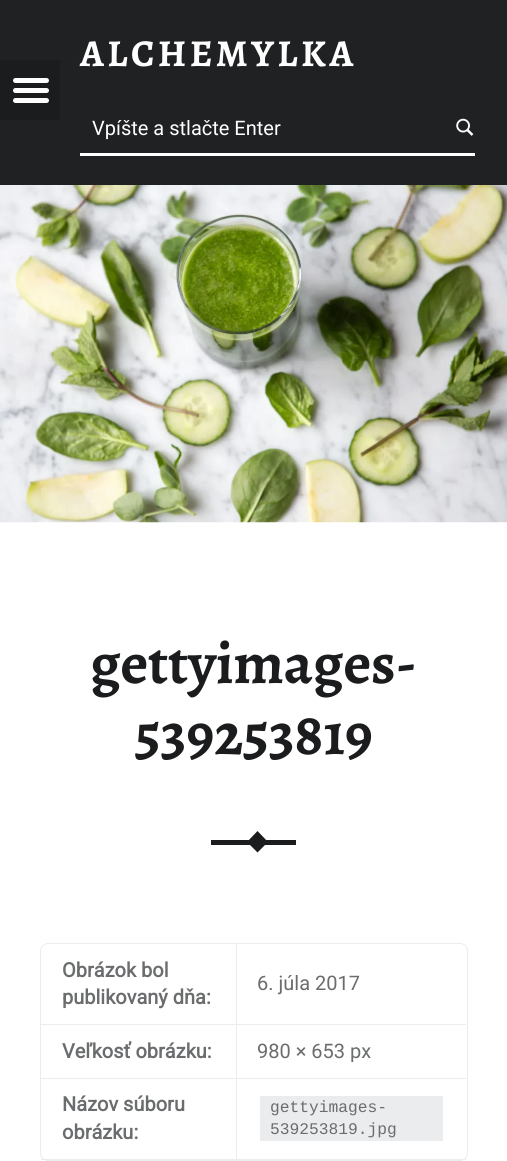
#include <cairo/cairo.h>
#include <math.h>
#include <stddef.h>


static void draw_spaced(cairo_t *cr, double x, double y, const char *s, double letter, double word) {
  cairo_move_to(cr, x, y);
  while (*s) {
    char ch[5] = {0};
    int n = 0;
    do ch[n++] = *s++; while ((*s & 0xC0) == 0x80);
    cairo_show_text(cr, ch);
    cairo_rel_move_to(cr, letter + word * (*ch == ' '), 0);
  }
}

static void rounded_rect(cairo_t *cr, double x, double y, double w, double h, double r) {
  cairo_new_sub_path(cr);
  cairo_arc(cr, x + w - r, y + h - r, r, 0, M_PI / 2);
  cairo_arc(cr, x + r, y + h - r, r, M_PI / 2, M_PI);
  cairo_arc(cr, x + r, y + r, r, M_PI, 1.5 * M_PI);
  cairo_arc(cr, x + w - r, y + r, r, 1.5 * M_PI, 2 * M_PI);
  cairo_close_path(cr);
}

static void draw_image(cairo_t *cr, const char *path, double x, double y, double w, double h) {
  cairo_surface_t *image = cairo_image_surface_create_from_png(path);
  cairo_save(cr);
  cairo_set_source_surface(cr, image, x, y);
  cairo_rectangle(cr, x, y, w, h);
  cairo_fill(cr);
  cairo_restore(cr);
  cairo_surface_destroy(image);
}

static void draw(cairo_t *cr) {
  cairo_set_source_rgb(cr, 1, 1, 1);
  cairo_paint(cr);
  cairo_set_source_rgb(cr, 32 / 255.0, 33 / 255.0, 35 / 255.0);
  cairo_rectangle(cr, 0, 0, 507, 185);
  cairo_fill(cr);
  cairo_set_source_rgb(cr, 26 / 255.0, 28 / 255.0, 30 / 255.0);
  cairo_rectangle(cr, 0, 60, 60, 60);
  cairo_fill(cr);
  cairo_set_source_rgb(cr, 1, 1, 1);
  rounded_rect(cr, 13, 78, 36, 5, 2.5);
  cairo_fill(cr);
  rounded_rect(cr, 13, 88, 36, 5, 2.5);
  cairo_fill(cr);
  rounded_rect(cr, 13, 98, 36, 5, 2.5);
  cairo_fill(cr);
  cairo_rectangle(cr, 80, 153, 395, 3);
  cairo_fill(cr);
  draw_image(cr, "images/1.png", 456, 118, 18, 18);
  draw_image(cr, "images/2.png", 0, 185, 507, 338);
  cairo_set_source_rgb(cr, 26 / 255.0, 28 / 255.0, 30 / 255.0);
  cairo_rectangle(cr, 211, 840, 85, 5);
  cairo_fill(cr);
  cairo_new_path(cr);
  cairo_move_to(cr, 257.5, 831);
  cairo_line_to(cr, 268, 842);
  cairo_line_to(cr, 257.5, 852.5);
  cairo_line_to(cr, 247, 842);
  cairo_close_path(cr);
  cairo_fill(cr);
  rounded_rect(cr, 40.5, 943.5, 427, 217, 7.5);
  cairo_set_source_rgb(cr, 234 / 255.0, 236 / 255.0, 238 / 255.0);
  cairo_set_line_width(cr, 1);
  cairo_stroke(cr);
  cairo_rectangle(cr, 41, 1024, 425, 1);
  cairo_fill(cr);
  cairo_rectangle(cr, 236, 944, 1, 81);
  cairo_fill(cr);
  cairo_rectangle(cr, 41, 1078, 425, 1);
  cairo_fill(cr);
  cairo_rectangle(cr, 236, 1025, 1, 54);
  cairo_fill(cr);
  cairo_rectangle(cr, 41, 1159, 425, 1);
  cairo_fill(cr);
  cairo_rectangle(cr, 236, 1079, 1, 81);
  cairo_fill(cr);
  cairo_rectangle(cr, 260, 1096, 183, 45);
  cairo_fill(cr);
  cairo_select_font_face(cr, "Alegreya", CAIRO_FONT_SLANT_NORMAL, CAIRO_FONT_WEIGHT_BOLD);
  cairo_set_font_size(cr, 38);
  cairo_set_source_rgb(cr, 1, 1, 1);
  draw_spaced(cr, 80, 66, "ALCHEMYLKA", 3.5, 0);
  cairo_select_font_face(cr, "Roboto", CAIRO_FONT_SLANT_NORMAL, CAIRO_FONT_WEIGHT_NORMAL);
  cairo_set_font_size(cr, 20);
  cairo_move_to(cr, 92, 135);
  cairo_show_text(cr, "Vpíšte a stlačte Enter");
  cairo_select_font_face(cr, "Alegreya", CAIRO_FONT_SLANT_NORMAL, CAIRO_FONT_WEIGHT_BOLD);
  cairo_set_font_size(cr, 60);
  cairo_set_source_rgb(cr, 26 / 255.0, 28 / 255.0, 30 / 255.0);
  cairo_move_to(cr, 90, 683);
  cairo_show_text(cr, "gettyimages-");
  cairo_move_to(cr, 135, 754);
  cairo_show_text(cr, "539253819");
  cairo_select_font_face(cr, "Roboto", CAIRO_FONT_SLANT_NORMAL, CAIRO_FONT_WEIGHT_BOLD);
  cairo_set_font_size(cr, 20);
  cairo_set_source_rgb(cr, 106 / 255.0, 108 / 255.0, 110 / 255.0);
  cairo_move_to(cr, 62, 977);
  cairo_show_text(cr, "Obrázok bol");
  cairo_move_to(cr, 62, 1004);
  cairo_show_text(cr, "publikovaný dňa:");
  cairo_select_font_face(cr, "Roboto", CAIRO_FONT_SLANT_NORMAL, CAIRO_FONT_WEIGHT_NORMAL);
  cairo_move_to(cr, 257, 990);
  cairo_show_text(cr, "6. júla 2017");
  cairo_select_font_face(cr, "Roboto", CAIRO_FONT_SLANT_NORMAL, CAIRO_FONT_WEIGHT_BOLD);
  cairo_move_to(cr, 62, 1058);
  cairo_show_text(cr, "Veľkosť obrázku:");
  cairo_select_font_face(cr, "Roboto", CAIRO_FONT_SLANT_NORMAL, CAIRO_FONT_WEIGHT_NORMAL);
  cairo_move_to(cr, 257, 1058);
  cairo_show_text(cr, "980 × 653 px");
  cairo_select_font_face(cr, "Roboto", CAIRO_FONT_SLANT_NORMAL, CAIRO_FONT_WEIGHT_BOLD);
  cairo_move_to(cr, 62, 1111);
  cairo_show_text(cr, "Názov súboru");
  cairo_move_to(cr, 62, 1139);
  cairo_show_text(cr, "obrázku:");
  cairo_select_font_face(cr, "Liberation Mono", CAIRO_FONT_SLANT_NORMAL, CAIRO_FONT_WEIGHT_NORMAL);
  cairo_set_font_size(cr, 16.25);
  cairo_move_to(cr, 270, 1112);
  cairo_show_text(cr, "gettyimages-");
  cairo_move_to(cr, 270, 1134);
  cairo_show_text(cr, "539253819.jpg");
}

int main(void) {
  cairo_surface_t *surface = cairo_image_surface_create(CAIRO_FORMAT_RGB24, 507, 1161);
  cairo_t *cr = cairo_create(surface);
  cairo_font_options_t *options = cairo_font_options_create();
  cairo_font_options_set_hint_metrics(options, CAIRO_HINT_METRICS_OFF);
  cairo_font_options_set_hint_style(options, CAIRO_HINT_STYLE_NONE);
  cairo_set_font_options(cr, options);
  cairo_set_miter_limit(cr, 4);
  draw(cr);
  cairo_surface_write_to_png(surface, "out.png");
  cairo_font_options_destroy(options);
  cairo_destroy(cr);
  cairo_surface_destroy(surface);
  return 0;
}
